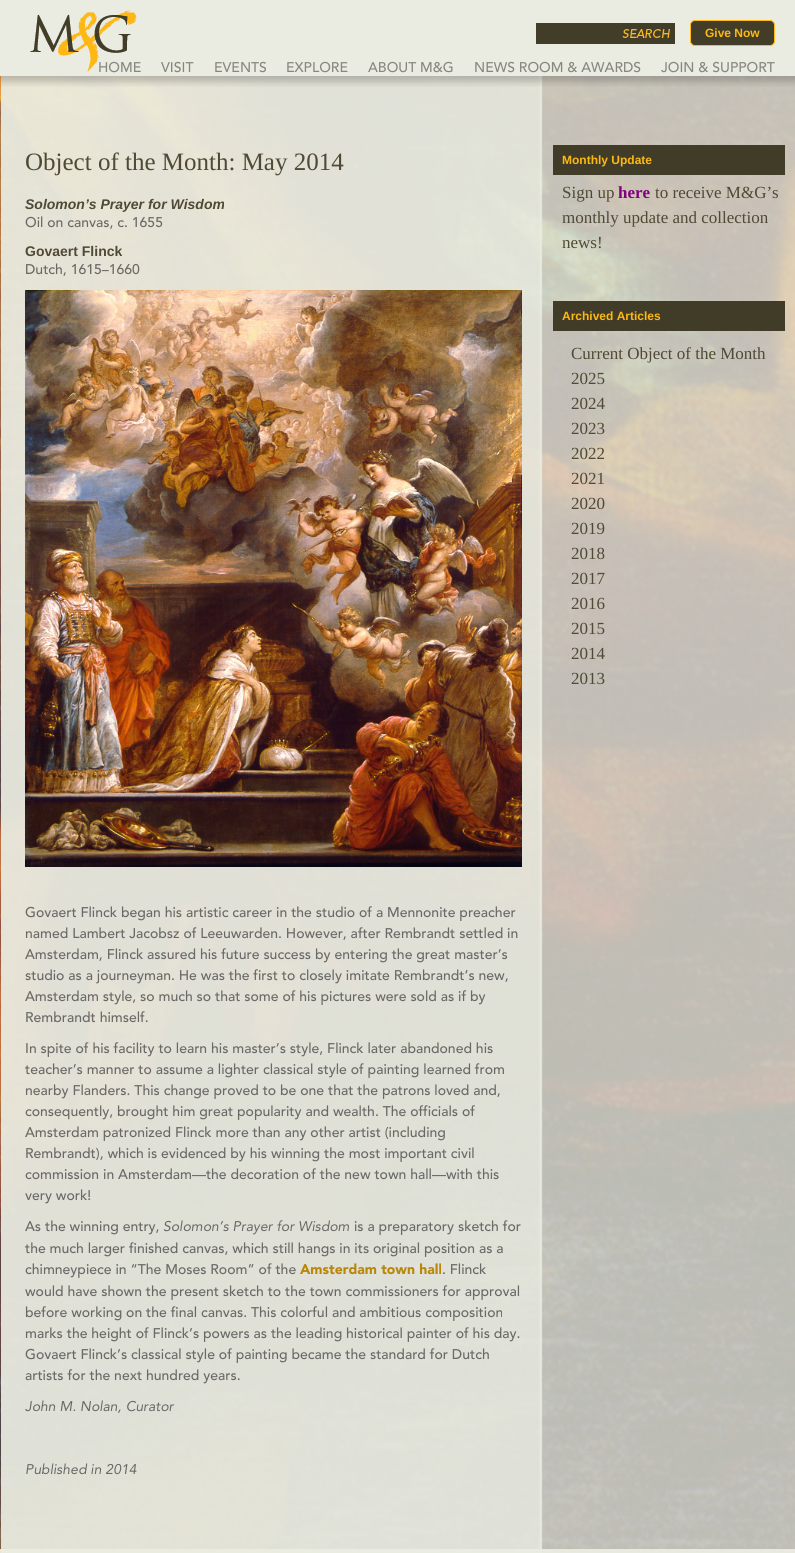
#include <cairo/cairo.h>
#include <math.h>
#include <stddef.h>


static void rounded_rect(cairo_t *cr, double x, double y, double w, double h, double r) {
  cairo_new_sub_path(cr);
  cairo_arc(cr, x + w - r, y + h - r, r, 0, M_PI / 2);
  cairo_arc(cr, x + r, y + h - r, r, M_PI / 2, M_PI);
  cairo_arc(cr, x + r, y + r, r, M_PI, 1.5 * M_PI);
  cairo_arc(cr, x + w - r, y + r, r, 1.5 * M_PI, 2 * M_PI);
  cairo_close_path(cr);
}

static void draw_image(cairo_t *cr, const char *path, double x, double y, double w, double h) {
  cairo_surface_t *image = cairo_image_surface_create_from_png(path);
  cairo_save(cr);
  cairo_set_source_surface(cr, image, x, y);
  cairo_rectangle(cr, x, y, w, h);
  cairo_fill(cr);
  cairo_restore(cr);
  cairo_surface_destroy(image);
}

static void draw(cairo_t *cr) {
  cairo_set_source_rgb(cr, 1, 1, 1);
  cairo_paint(cr);
  draw_image(cr, "images/4.png", 0, 76, 795, 1477);
  draw_image(cr, "images/5.png", 0, 76, 795, 1477);
  draw_image(cr, "images/1.png", 0, 0, 795, 87);
  draw_image(cr, "images/2.png", 30, 10, 107, 62);
  cairo_set_source_rgb(cr, 66 / 255.0, 61 / 255.0, 40 / 255.0);
  cairo_rectangle(cr, 536, 23, 84, 21);
  cairo_fill(cr);
  draw_image(cr, "images/3.png", 620, 23, 55, 21);
  rounded_rect(cr, 690.5, 20.5, 84, 25, 4.5);
  cairo_fill_preserve(cr);
  cairo_set_source_rgb(cr, 253 / 255.0, 187 / 255.0, 19 / 255.0);
  cairo_set_line_width(cr, 1);
  cairo_stroke(cr);
  draw_image(cr, "images/6.png", 25, 290, 497, 577);
  cairo_set_source_rgb(cr, 65 / 255.0, 60 / 255.0, 39 / 255.0);
  cairo_rectangle(cr, 553, 145, 232, 30);
  cairo_fill(cr);
  cairo_rectangle(cr, 553, 301, 232, 30);
  cairo_fill(cr);
  cairo_set_source_rgba(cr, 234 / 255.0, 236 / 255.0, 225 / 255.0, 0.95);
  cairo_rectangle(cr, 0, 1549, 795, 4);
  cairo_fill(cr);
  cairo_select_font_face(cr, "Liberation Sans", CAIRO_FONT_SLANT_NORMAL, CAIRO_FONT_WEIGHT_BOLD);
  cairo_set_font_size(cr, 12);
  cairo_set_source_rgb(cr, 253 / 255.0, 185 / 255.0, 19 / 255.0);
  cairo_move_to(cr, 705, 37);
  cairo_show_text(cr, "Give Now");
  cairo_select_font_face(cr, "Avenir Medium", CAIRO_FONT_SLANT_NORMAL, CAIRO_FONT_WEIGHT_NORMAL);
  cairo_set_font_size(cr, 14);
  cairo_set_source_rgb(cr, 137 / 255.0, 134 / 255.0, 129 / 255.0);
  cairo_move_to(cr, 98, 72);
  cairo_show_text(cr, "HOME");
  cairo_move_to(cr, 161, 72);
  cairo_show_text(cr, "VISIT");
  cairo_move_to(cr, 214, 72);
  cairo_show_text(cr, "EVENTS");
  cairo_move_to(cr, 286, 72);
  cairo_show_text(cr, "EXPLORE");
  cairo_move_to(cr, 368, 72);
  cairo_show_text(cr, "ABOUT M&G");
  cairo_move_to(cr, 474, 72);
  cairo_show_text(cr, "NEWS ROOM & AWARDS");
  cairo_move_to(cr, 661, 72);
  cairo_show_text(cr, "JOIN & SUPPORT");
  cairo_select_font_face(cr, "Liberation Serif", CAIRO_FONT_SLANT_NORMAL, CAIRO_FONT_WEIGHT_NORMAL);
  cairo_set_font_size(cr, 25);
  cairo_set_source_rgb(cr, 79 / 255.0, 73 / 255.0, 53 / 255.0);
  cairo_move_to(cr, 25, 170);
  cairo_show_text(cr, "Object of the Month: May 2014");
  cairo_select_font_face(cr, "Liberation Sans", CAIRO_FONT_SLANT_ITALIC, CAIRO_FONT_WEIGHT_BOLD);
  cairo_set_font_size(cr, 14);
  cairo_move_to(cr, 25, 209);
  cairo_show_text(cr, "Solomon’s Prayer for Wisdom");
  cairo_select_font_face(cr, "Avenir Medium", CAIRO_FONT_SLANT_NORMAL, CAIRO_FONT_WEIGHT_NORMAL);
  cairo_set_source_rgb(cr, 107 / 255.0, 105 / 255.0, 103 / 255.0);
  cairo_move_to(cr, 25, 227);
  cairo_show_text(cr, "Oil on canvas, c. 1655");
  cairo_select_font_face(cr, "Liberation Sans", CAIRO_FONT_SLANT_NORMAL, CAIRO_FONT_WEIGHT_BOLD);
  cairo_set_source_rgb(cr, 79 / 255.0, 73 / 255.0, 53 / 255.0);
  cairo_move_to(cr, 25, 256);
  cairo_show_text(cr, "Govaert Flinck");
  cairo_select_font_face(cr, "Avenir Medium", CAIRO_FONT_SLANT_NORMAL, CAIRO_FONT_WEIGHT_NORMAL);
  cairo_set_source_rgb(cr, 107 / 255.0, 105 / 255.0, 103 / 255.0);
  cairo_move_to(cr, 25, 274);
  cairo_show_text(cr, "Dutch, 1615–1660");
  cairo_move_to(cr, 25, 917);
  cairo_show_text(cr, "Govaert Flinck began his artistic career in the studio of a Mennonite preacher");
  cairo_move_to(cr, 25, 938);
  cairo_show_text(cr, "named Lambert Jacobsz of Leeuwarden. However, after Rembrandt settled in");
  cairo_move_to(cr, 25, 959);
  cairo_show_text(cr, "Amsterdam, Flinck assured his future success by entering the great master’s");
  cairo_move_to(cr, 25, 980);
  cairo_show_text(cr, "studio as a journeyman. He was the first to closely imitate Rembrandt’s new,");
  cairo_move_to(cr, 25, 1001);
  cairo_show_text(cr, "Amsterdam style, so much so that some of his pictures were sold as if by");
  cairo_move_to(cr, 25, 1022);
  cairo_show_text(cr, "Rembrandt himself.");
  cairo_move_to(cr, 25, 1053);
  cairo_show_text(cr, "In spite of his facility to learn his master’s style, Flinck later abandoned his");
  cairo_move_to(cr, 25, 1074);
  cairo_show_text(cr, "teacher’s manner to assume a lighter classical style of painting learned from");
  cairo_move_to(cr, 25, 1095);
  cairo_show_text(cr, "nearby Flanders. This change proved to be one that the patrons loved and,");
  cairo_move_to(cr, 25, 1116);
  cairo_show_text(cr, "consequently, brought him great popularity and wealth. The officials of");
  cairo_move_to(cr, 25, 1137);
  cairo_show_text(cr, "Amsterdam patronized Flinck more than any other artist (including");
  cairo_move_to(cr, 25, 1158);
  cairo_show_text(cr, "Rembrandt), which is evidenced by his winning the most important civil");
  cairo_move_to(cr, 25, 1179);
  cairo_show_text(cr, "commission in Amsterdam—the decoration of the new town hall—with this");
  cairo_move_to(cr, 25, 1200);
  cairo_show_text(cr, "very work!");
  cairo_move_to(cr, 25, 1231);
  cairo_show_text(cr, "As the winning entry,");
  cairo_select_font_face(cr, "Avenir", CAIRO_FONT_SLANT_ITALIC, CAIRO_FONT_WEIGHT_NORMAL);
  cairo_move_to(cr, 163, 1231);
  cairo_show_text(cr, "Solomon’s Prayer for Wisdom");
  cairo_select_font_face(cr, "Avenir Medium", CAIRO_FONT_SLANT_NORMAL, CAIRO_FONT_WEIGHT_NORMAL);
  cairo_move_to(cr, 354, 1231);
  cairo_show_text(cr, "is a preparatory sketch for");
  cairo_move_to(cr, 25, 1253);
  cairo_show_text(cr, "the much larger finished canvas, which still hangs in its original position as a");
  cairo_move_to(cr, 25, 1274);
  cairo_show_text(cr, "chimneypiece in “The Moses Room” of the");
  cairo_select_font_face(cr, "Avenir Black", CAIRO_FONT_SLANT_NORMAL, CAIRO_FONT_WEIGHT_NORMAL);
  cairo_set_source_rgb(cr, 184 / 255.0, 134 / 255.0, 11 / 255.0);
  cairo_move_to(cr, 300, 1274);
  cairo_show_text(cr, "Amsterdam town hall");
  cairo_select_font_face(cr, "Avenir Medium", CAIRO_FONT_SLANT_NORMAL, CAIRO_FONT_WEIGHT_NORMAL);
  cairo_set_source_rgb(cr, 107 / 255.0, 105 / 255.0, 103 / 255.0);
  cairo_move_to(cr, 442, 1274);
  cairo_show_text(cr, ". Flinck");
  cairo_move_to(cr, 25, 1296);
  cairo_show_text(cr, "would have shown the present sketch to the town commissioners for approval");
  cairo_move_to(cr, 25, 1317);
  cairo_show_text(cr, "before working on the final canvas. This colorful and ambitious composition");
  cairo_move_to(cr, 25, 1338);
  cairo_show_text(cr, "marks the height of Flinck’s powers as the leading historical painter of his day.");
  cairo_move_to(cr, 25, 1359);
  cairo_show_text(cr, "Govaert Flinck’s classical style of painting became the standard for Dutch");
  cairo_move_to(cr, 25, 1380);
  cairo_show_text(cr, "artists for the next hundred years.");
  cairo_select_font_face(cr, "Avenir", CAIRO_FONT_SLANT_ITALIC, CAIRO_FONT_WEIGHT_NORMAL);
  cairo_move_to(cr, 25, 1411);
  cairo_show_text(cr, "John M. Nolan, Curator");
  cairo_move_to(cr, 25, 1474);
  cairo_show_text(cr, "Published in 2014");
  cairo_select_font_face(cr, "Liberation Sans", CAIRO_FONT_SLANT_NORMAL, CAIRO_FONT_WEIGHT_BOLD);
  cairo_set_font_size(cr, 12);
  cairo_set_source_rgb(cr, 253 / 255.0, 185 / 255.0, 19 / 255.0);
  cairo_move_to(cr, 562, 164);
  cairo_show_text(cr, "Monthly Update");
  cairo_select_font_face(cr, "Liberation Serif", CAIRO_FONT_SLANT_NORMAL, CAIRO_FONT_WEIGHT_NORMAL);
  cairo_set_font_size(cr, 17);
  cairo_set_source_rgb(cr, 79 / 255.0, 73 / 255.0, 53 / 255.0);
  cairo_move_to(cr, 562, 198);
  cairo_show_text(cr, "Sign up");
  cairo_select_font_face(cr, "Liberation Serif", CAIRO_FONT_SLANT_NORMAL, CAIRO_FONT_WEIGHT_BOLD);
  cairo_set_source_rgb(cr, 128 / 255.0, 0, 128 / 255.0);
  cairo_move_to(cr, 618, 198);
  cairo_show_text(cr, "here");
  cairo_select_font_face(cr, "Liberation Serif", CAIRO_FONT_SLANT_NORMAL, CAIRO_FONT_WEIGHT_NORMAL);
  cairo_set_source_rgb(cr, 79 / 255.0, 73 / 255.0, 53 / 255.0);
  cairo_move_to(cr, 655, 198);
  cairo_show_text(cr, "to receive M&G’s");
  cairo_move_to(cr, 562, 223);
  cairo_show_text(cr, "monthly update and collection");
  cairo_move_to(cr, 562, 248);
  cairo_show_text(cr, "news!");
  cairo_select_font_face(cr, "Liberation Sans", CAIRO_FONT_SLANT_NORMAL, CAIRO_FONT_WEIGHT_BOLD);
  cairo_set_font_size(cr, 12);
  cairo_set_source_rgb(cr, 253 / 255.0, 185 / 255.0, 19 / 255.0);
  cairo_move_to(cr, 562, 320);
  cairo_show_text(cr, "Archived Articles");
  cairo_select_font_face(cr, "Liberation Serif", CAIRO_FONT_SLANT_NORMAL, CAIRO_FONT_WEIGHT_NORMAL);
  cairo_set_font_size(cr, 17);
  cairo_set_source_rgb(cr, 79 / 255.0, 73 / 255.0, 53 / 255.0);
  cairo_move_to(cr, 571, 359);
  cairo_show_text(cr, "Current Object of the Month");
  cairo_move_to(cr, 571, 384);
  cairo_show_text(cr, "2025");
  cairo_move_to(cr, 571, 409);
  cairo_show_text(cr, "2024");
  cairo_move_to(cr, 571, 434);
  cairo_show_text(cr, "2023");
  cairo_move_to(cr, 571, 459);
  cairo_show_text(cr, "2022");
  cairo_move_to(cr, 571, 484);
  cairo_show_text(cr, "2021");
  cairo_move_to(cr, 571, 509);
  cairo_show_text(cr, "2020");
  cairo_move_to(cr, 571, 534);
  cairo_show_text(cr, "2019");
  cairo_move_to(cr, 571, 559);
  cairo_show_text(cr, "2018");
  cairo_move_to(cr, 571, 584);
  cairo_show_text(cr, "2017");
  cairo_move_to(cr, 571, 609);
  cairo_show_text(cr, "2016");
  cairo_move_to(cr, 571, 634);
  cairo_show_text(cr, "2015");
  cairo_move_to(cr, 571, 659);
  cairo_show_text(cr, "2014");
  cairo_move_to(cr, 571, 684);
  cairo_show_text(cr, "2013");
}

int main(void) {
  cairo_surface_t *surface = cairo_image_surface_create(CAIRO_FORMAT_RGB24, 795, 1553);
  cairo_t *cr = cairo_create(surface);
  cairo_font_options_t *options = cairo_font_options_create();
  cairo_font_options_set_hint_metrics(options, CAIRO_HINT_METRICS_OFF);
  cairo_font_options_set_hint_style(options, CAIRO_HINT_STYLE_NONE);
  cairo_set_font_options(cr, options);
  cairo_set_miter_limit(cr, 4);
  draw(cr);
  cairo_surface_write_to_png(surface, "out.png");
  cairo_font_options_destroy(options);
  cairo_destroy(cr);
  cairo_surface_destroy(surface);
  return 0;
}
